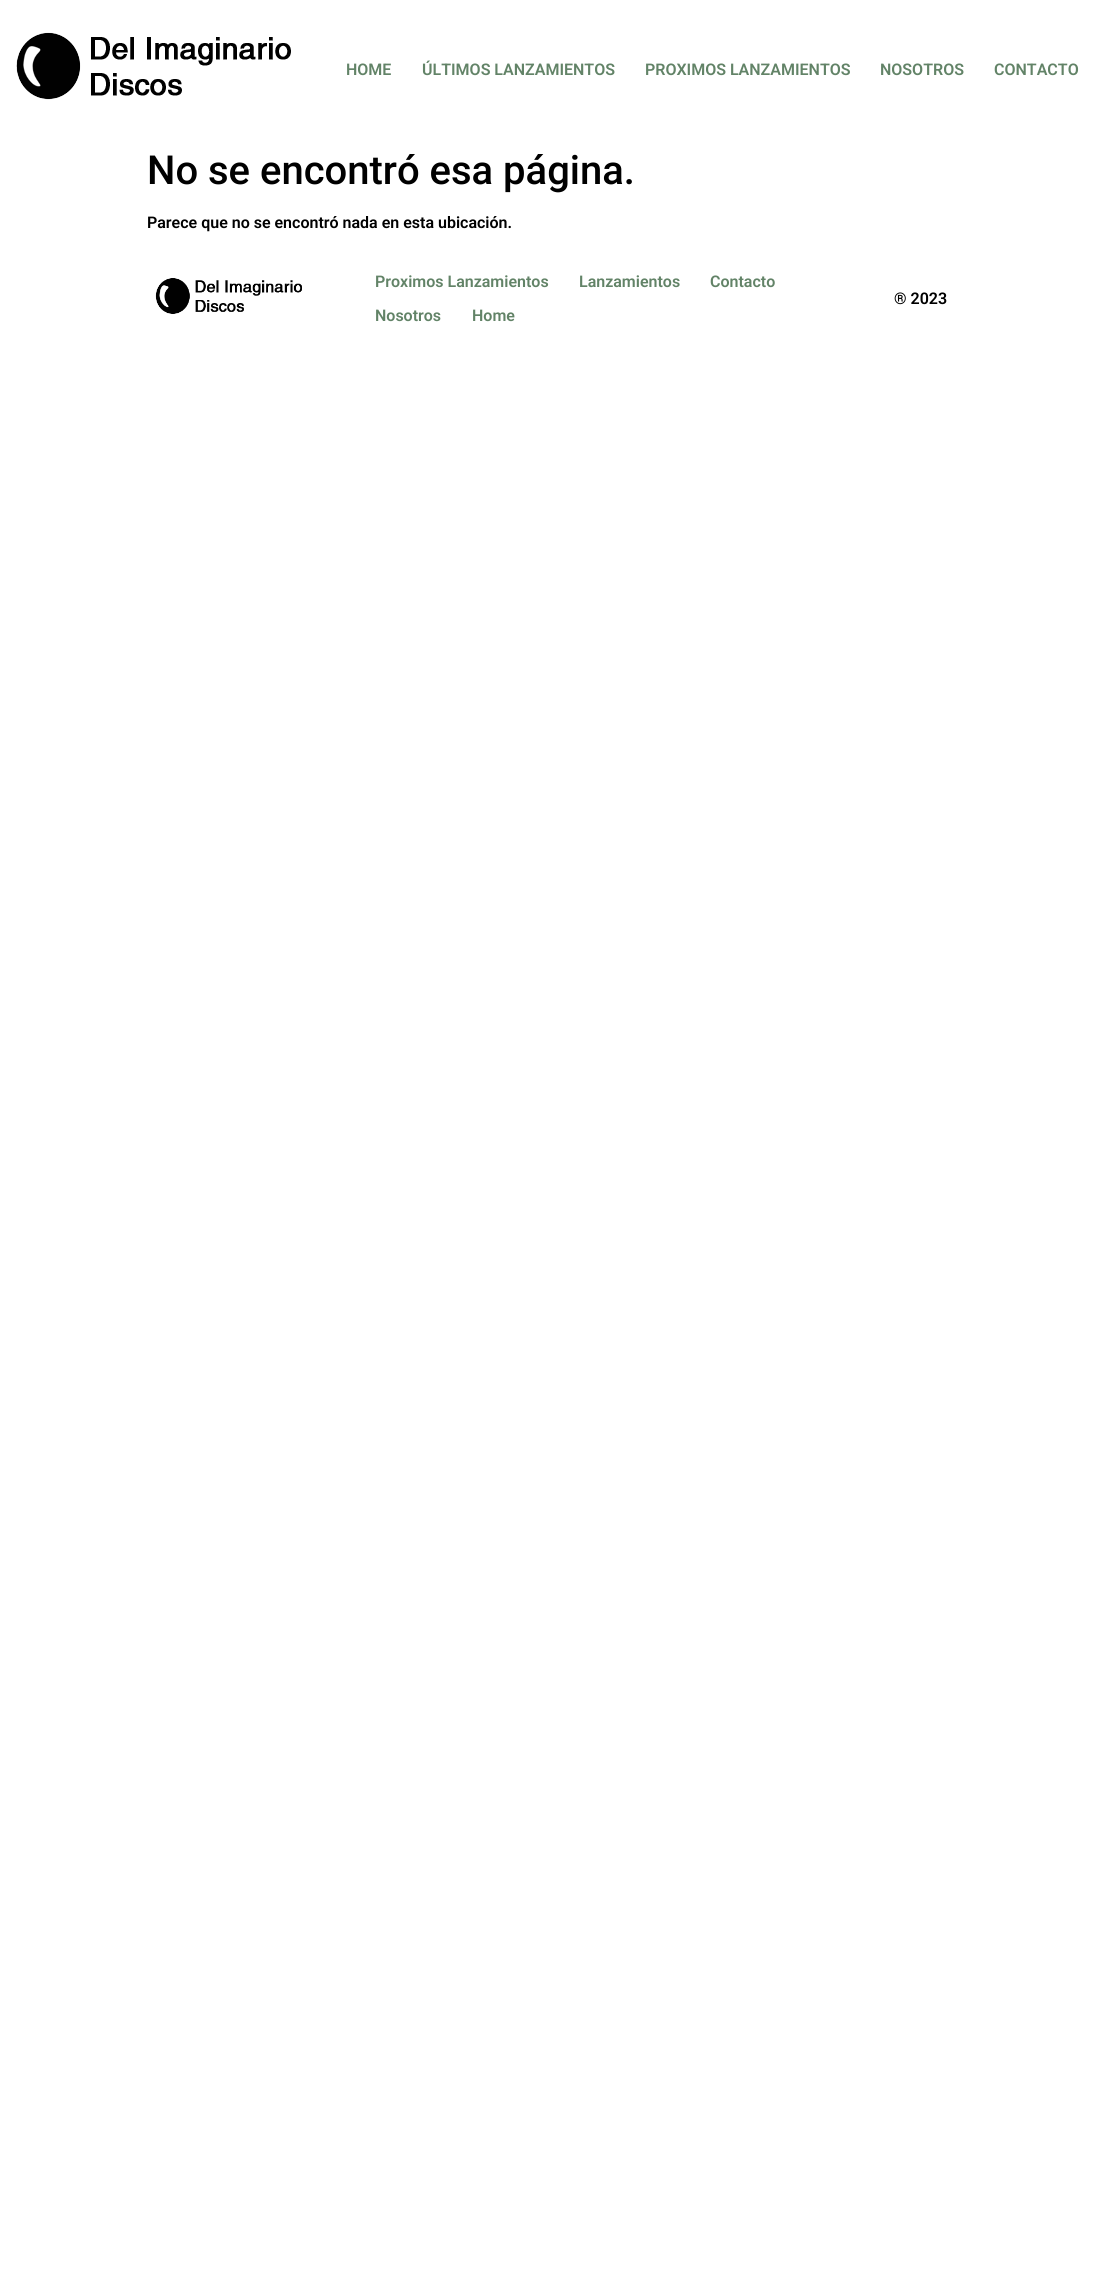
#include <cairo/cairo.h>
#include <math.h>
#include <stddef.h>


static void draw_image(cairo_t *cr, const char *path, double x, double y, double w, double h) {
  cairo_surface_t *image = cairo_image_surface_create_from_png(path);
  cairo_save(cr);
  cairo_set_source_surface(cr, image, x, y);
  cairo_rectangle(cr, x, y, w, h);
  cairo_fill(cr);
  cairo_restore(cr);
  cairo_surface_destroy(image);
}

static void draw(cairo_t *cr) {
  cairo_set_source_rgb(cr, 1, 1, 1);
  cairo_paint(cr);
  draw_image(cr, "images/1.png", 16, 32, 275, 68);
  draw_image(cr, "images/2.png", 155, 278, 147, 36);
  cairo_select_font_face(cr, "Roboto SemiBold", CAIRO_FONT_SLANT_NORMAL, CAIRO_FONT_WEIGHT_NORMAL);
  cairo_set_font_size(cr, 16);
  cairo_set_source_rgb(cr, 98 / 255.0, 131 / 255.0, 103 / 255.0);
  cairo_move_to(cr, 346, 75);
  cairo_show_text(cr, "HOME");
  cairo_move_to(cr, 422, 75);
  cairo_show_text(cr, "ÚLTIMOS LANZAMIENTOS");
  cairo_move_to(cr, 645, 75);
  cairo_show_text(cr, "PROXIMOS LANZAMIENTOS");
  cairo_move_to(cr, 880, 75);
  cairo_show_text(cr, "NOSOTROS");
  cairo_move_to(cr, 994, 75);
  cairo_show_text(cr, "CONTACTO");
  cairo_select_font_face(cr, "Roboto Medium", CAIRO_FONT_SLANT_NORMAL, CAIRO_FONT_WEIGHT_NORMAL);
  cairo_set_font_size(cr, 40);
  cairo_set_source_rgb(cr, 0, 0, 0);
  cairo_move_to(cr, 147, 184);
  cairo_show_text(cr, "No se encontró esa página.");
  cairo_select_font_face(cr, "Roboto SemiBold", CAIRO_FONT_SLANT_NORMAL, CAIRO_FONT_WEIGHT_NORMAL);
  cairo_set_font_size(cr, 16);
  cairo_move_to(cr, 147, 228);
  cairo_show_text(cr, "Parece que no se encontró nada en esta ubicación.");
  cairo_set_source_rgb(cr, 98 / 255.0, 131 / 255.0, 103 / 255.0);
  cairo_move_to(cr, 375, 287);
  cairo_show_text(cr, "Proximos Lanzamientos");
  cairo_move_to(cr, 579, 287);
  cairo_show_text(cr, "Lanzamientos");
  cairo_move_to(cr, 710, 287);
  cairo_show_text(cr, "Contacto");
  cairo_move_to(cr, 375, 321);
  cairo_show_text(cr, "Nosotros");
  cairo_move_to(cr, 472, 321);
  cairo_show_text(cr, "Home");
  cairo_set_source_rgb(cr, 0, 0, 0);
  cairo_move_to(cr, 894, 304);
  cairo_show_text(cr, "® 2023");
}

int main(void) {
  cairo_surface_t *surface = cairo_image_surface_create(CAIRO_FORMAT_RGB24, 1094, 2284);
  cairo_t *cr = cairo_create(surface);
  cairo_font_options_t *options = cairo_font_options_create();
  cairo_font_options_set_hint_metrics(options, CAIRO_HINT_METRICS_OFF);
  cairo_font_options_set_hint_style(options, CAIRO_HINT_STYLE_NONE);
  cairo_set_font_options(cr, options);
  cairo_set_miter_limit(cr, 4);
  draw(cr);
  cairo_surface_write_to_png(surface, "out.png");
  cairo_font_options_destroy(options);
  cairo_destroy(cr);
  cairo_surface_destroy(surface);
  return 0;
}
